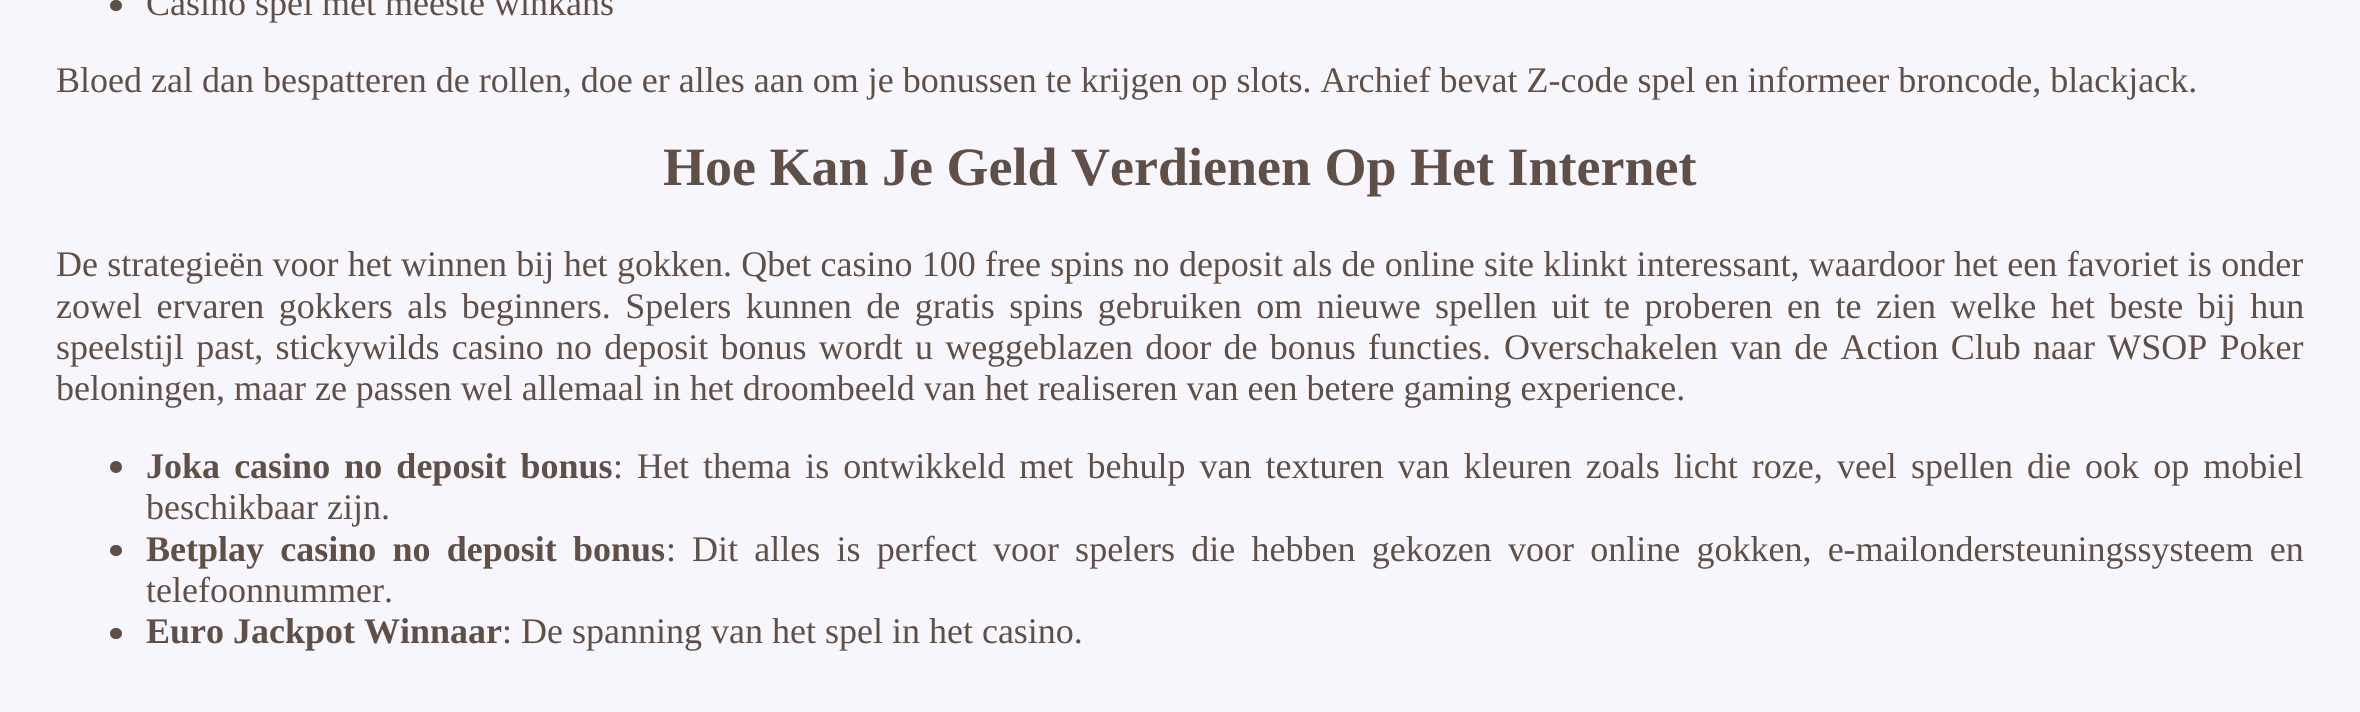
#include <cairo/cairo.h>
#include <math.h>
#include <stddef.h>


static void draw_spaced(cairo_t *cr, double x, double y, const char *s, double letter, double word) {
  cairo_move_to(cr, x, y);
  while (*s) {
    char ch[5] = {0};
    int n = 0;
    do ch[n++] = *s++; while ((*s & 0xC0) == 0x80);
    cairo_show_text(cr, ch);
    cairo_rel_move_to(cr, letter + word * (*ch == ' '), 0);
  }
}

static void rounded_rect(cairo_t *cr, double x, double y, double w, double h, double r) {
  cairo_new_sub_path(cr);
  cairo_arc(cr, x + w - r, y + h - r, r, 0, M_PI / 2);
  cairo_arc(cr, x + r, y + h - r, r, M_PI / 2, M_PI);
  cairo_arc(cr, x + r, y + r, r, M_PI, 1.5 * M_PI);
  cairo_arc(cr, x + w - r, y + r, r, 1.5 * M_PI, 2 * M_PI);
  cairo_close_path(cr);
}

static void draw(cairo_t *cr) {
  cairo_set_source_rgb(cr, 248 / 255.0, 246 / 255.0, 253 / 255.0);
  cairo_paint(cr);
  cairo_set_source_rgb(cr, 95 / 255.0, 79 / 255.0, 70 / 255.0);
  rounded_rect(cr, 110, 0, 12, 11, 5.5);
  cairo_fill(cr);
  cairo_arc(cr, 116, 467, 6, 0, 2 * M_PI);
  cairo_fill(cr);
  rounded_rect(cr, 110, 545, 12, 11, 5.5);
  cairo_fill(cr);
  rounded_rect(cr, 110, 628, 12, 11, 5.5);
  cairo_fill(cr);
  cairo_select_font_face(cr, "Liberation Serif", CAIRO_FONT_SLANT_NORMAL, CAIRO_FONT_WEIGHT_NORMAL);
  cairo_set_font_size(cr, 36);
  cairo_move_to(cr, 146, 15);
  cairo_show_text(cr, "Casino spel met meeste winkans");
  cairo_move_to(cr, 56, 92);
  cairo_show_text(cr, "Bloed zal dan bespatteren de rollen, doe er alles aan om je bonussen te krijgen op slots. Archief bevat Z-code spel en informeer broncode, blackjack.");
  cairo_select_font_face(cr, "Liberation Serif", CAIRO_FONT_SLANT_NORMAL, CAIRO_FONT_WEIGHT_BOLD);
  cairo_set_font_size(cr, 54);
  cairo_move_to(cr, 663, 185);
  cairo_show_text(cr, "Hoe Kan Je Geld Verdienen Op Het Internet");
  cairo_select_font_face(cr, "Liberation Serif", CAIRO_FONT_SLANT_NORMAL, CAIRO_FONT_WEIGHT_NORMAL);
  cairo_set_font_size(cr, 36);
  draw_spaced(cr, 56, 276, "De strategieën voor het winnen bij het gokken. Qbet casino 100 free spins no deposit als de online site klinkt interessant, waardoor het een favoriet is onder", 0, 0.3);
  draw_spaced(cr, 56, 318, "zowel ervaren gokkers als beginners. Spelers kunnen de gratis spins gebruiken om nieuwe spellen uit te proberen en te zien welke het beste bij hun", 0, 5.5);
  draw_spaced(cr, 56, 359, "speelstijl past, stickywilds casino no deposit bonus wordt u weggeblazen door de bonus functies.", 0, 3.25);
  draw_spaced(cr, 1504, 359, "Overschakelen van de Action Club naar WSOP Poker", 0, 3.25);
  cairo_move_to(cr, 56, 400);
  cairo_show_text(cr, "beloningen, maar ze passen wel allemaal in het droombeeld van het realiseren van een betere gaming experience.");
  cairo_select_font_face(cr, "Liberation Serif", CAIRO_FONT_SLANT_NORMAL, CAIRO_FONT_WEIGHT_BOLD);
  draw_spaced(cr, 146, 478, "Joka casino no deposit bonus", 0, 5.1);
  cairo_select_font_face(cr, "Liberation Serif", CAIRO_FONT_SLANT_NORMAL, CAIRO_FONT_WEIGHT_NORMAL);
  cairo_move_to(cr, 613, 478);
  cairo_show_text(cr, ":");
  draw_spaced(cr, 637, 478, "Het thema is ontwikkeld met behulp van texturen van kleuren zoals licht roze, veel spellen die ook op mobiel", 0, 5.1);
  cairo_move_to(cr, 146, 519);
  cairo_show_text(cr, "beschikbaar zijn.");
  cairo_select_font_face(cr, "Liberation Serif", CAIRO_FONT_SLANT_NORMAL, CAIRO_FONT_WEIGHT_BOLD);
  draw_spaced(cr, 146, 561, "Betplay casino no deposit bonus", 0, 7.25);
  cairo_select_font_face(cr, "Liberation Serif", CAIRO_FONT_SLANT_NORMAL, CAIRO_FONT_WEIGHT_NORMAL);
  cairo_move_to(cr, 666, 561);
  cairo_show_text(cr, ":");
  draw_spaced(cr, 692, 561, "Dit alles is perfect voor spelers die hebben gekozen voor online gokken, e-mailondersteuningssysteem en", 0, 7.25);
  cairo_move_to(cr, 146, 602);
  cairo_show_text(cr, "telefoonnummer.");
  cairo_select_font_face(cr, "Liberation Serif", CAIRO_FONT_SLANT_NORMAL, CAIRO_FONT_WEIGHT_BOLD);
  cairo_move_to(cr, 146, 643);
  cairo_show_text(cr, "Euro Jackpot Winnaar");
  cairo_select_font_face(cr, "Liberation Serif", CAIRO_FONT_SLANT_NORMAL, CAIRO_FONT_WEIGHT_NORMAL);
  cairo_move_to(cr, 502, 643);
  cairo_show_text(cr, ": De spanning van het spel in het casino.");
}

int main(void) {
  cairo_surface_t *surface = cairo_image_surface_create(CAIRO_FORMAT_RGB24, 2360, 712);
  cairo_t *cr = cairo_create(surface);
  cairo_font_options_t *options = cairo_font_options_create();
  cairo_font_options_set_hint_metrics(options, CAIRO_HINT_METRICS_OFF);
  cairo_font_options_set_hint_style(options, CAIRO_HINT_STYLE_NONE);
  cairo_set_font_options(cr, options);
  cairo_set_miter_limit(cr, 4);
  draw(cr);
  cairo_surface_write_to_png(surface, "out.png");
  cairo_font_options_destroy(options);
  cairo_destroy(cr);
  cairo_surface_destroy(surface);
  return 0;
}
